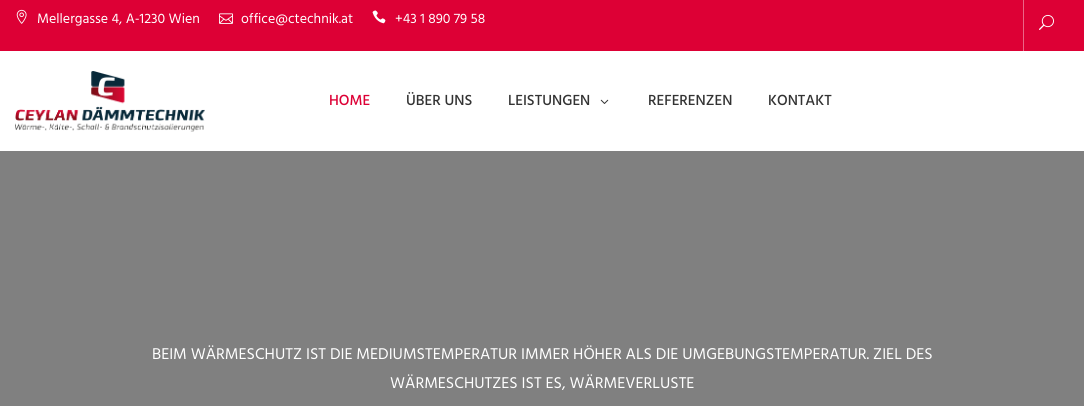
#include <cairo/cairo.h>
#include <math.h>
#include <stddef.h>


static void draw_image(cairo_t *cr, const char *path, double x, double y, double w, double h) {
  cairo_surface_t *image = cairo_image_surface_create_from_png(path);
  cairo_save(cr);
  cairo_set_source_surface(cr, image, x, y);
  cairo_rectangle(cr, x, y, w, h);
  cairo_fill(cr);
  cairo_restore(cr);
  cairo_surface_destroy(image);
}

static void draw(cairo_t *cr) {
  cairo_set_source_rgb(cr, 1, 1, 1);
  cairo_paint(cr);
  cairo_set_source_rgb(cr, 221 / 255.0, 0, 53 / 255.0);
  cairo_rectangle(cr, 0, 0, 1084, 51);
  cairo_fill(cr);
  draw_image(cr, "images/1.png", 16, 9, 11, 15);
  draw_image(cr, "images/2.png", 219, 13, 14, 11);
  draw_image(cr, "images/3.png", 372, 10, 14, 14);
  cairo_set_source_rgb(cr, 235 / 255.0, 102 / 255.0, 134 / 255.0);
  cairo_rectangle(cr, 1023, 0, 1, 51);
  cairo_fill(cr);
  draw_image(cr, "images/4.png", 1039, 14, 15, 16);
  draw_image(cr, "images/5.png", 15, 71, 190, 61);
  draw_image(cr, "images/6.png", 600, 99, 9, 5);
  cairo_set_source_rgb(cr, 128 / 255.0, 128 / 255.0, 128 / 255.0);
  cairo_rectangle(cr, 0, 151, 1084, 255);
  cairo_fill(cr);
  cairo_select_font_face(cr, "Hind", CAIRO_FONT_SLANT_NORMAL, CAIRO_FONT_WEIGHT_NORMAL);
  cairo_set_font_size(cr, 14);
  cairo_set_source_rgb(cr, 1, 1, 1);
  cairo_move_to(cr, 37, 23);
  cairo_show_text(cr, "Mellergasse 4, A-1230 Wien");
  cairo_move_to(cr, 241, 23);
  cairo_show_text(cr, "office@ctechnik.at");
  cairo_move_to(cr, 395, 23);
  cairo_show_text(cr, "+43 1 890 79 58");
  cairo_select_font_face(cr, "Hind Medium", CAIRO_FONT_SLANT_NORMAL, CAIRO_FONT_WEIGHT_NORMAL);
  cairo_set_font_size(cr, 15);
  cairo_set_source_rgb(cr, 221 / 255.0, 0, 53 / 255.0);
  cairo_move_to(cr, 329, 105);
  cairo_show_text(cr, "HOME");
  cairo_set_source_rgb(cr, 51 / 255.0, 51 / 255.0, 51 / 255.0);
  cairo_move_to(cr, 406, 105);
  cairo_show_text(cr, "ÜBER UNS");
  cairo_move_to(cr, 508, 105);
  cairo_show_text(cr, "LEISTUNGEN");
  cairo_move_to(cr, 648, 105);
  cairo_show_text(cr, "REFERENZEN");
  cairo_move_to(cr, 768, 105);
  cairo_show_text(cr, "KONTAKT");
  cairo_select_font_face(cr, "Hind", CAIRO_FONT_SLANT_NORMAL, CAIRO_FONT_WEIGHT_NORMAL);
  cairo_set_font_size(cr, 16);
  cairo_set_source_rgb(cr, 1, 1, 1);
  cairo_move_to(cr, 152, 359);
  cairo_show_text(cr, "BEIM WÄRMESCHUTZ IST DIE MEDIUMSTEMPERATUR IMMER HÖHER ALS DIE UMGEBUNGSTEMPERATUR. ZIEL DES");
  cairo_move_to(cr, 390, 388);
  cairo_show_text(cr, "WÄRMESCHUTZES IST ES, WÄRMEVERLUSTE");
}

int main(void) {
  cairo_surface_t *surface = cairo_image_surface_create(CAIRO_FORMAT_RGB24, 1084, 406);
  cairo_t *cr = cairo_create(surface);
  cairo_font_options_t *options = cairo_font_options_create();
  cairo_font_options_set_hint_metrics(options, CAIRO_HINT_METRICS_OFF);
  cairo_font_options_set_hint_style(options, CAIRO_HINT_STYLE_NONE);
  cairo_set_font_options(cr, options);
  cairo_set_miter_limit(cr, 4);
  draw(cr);
  cairo_surface_write_to_png(surface, "out.png");
  cairo_font_options_destroy(options);
  cairo_destroy(cr);
  cairo_surface_destroy(surface);
  return 0;
}
